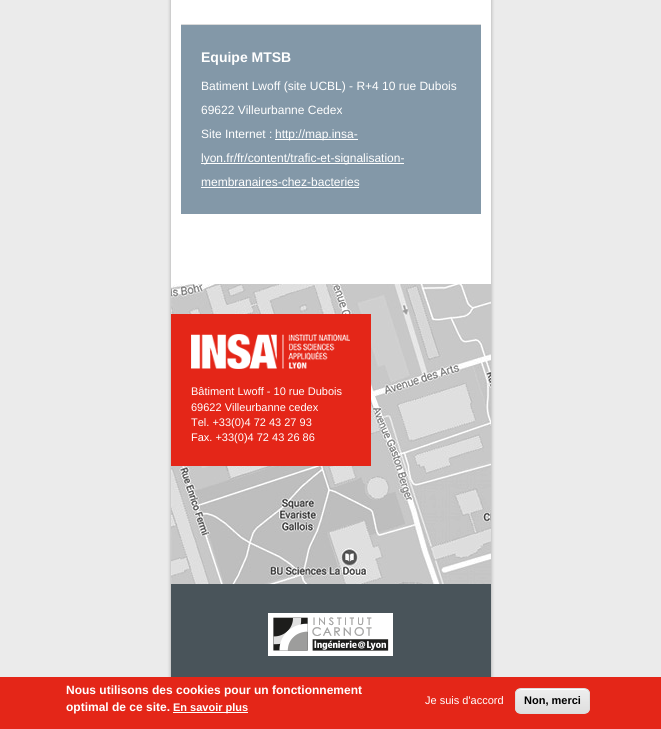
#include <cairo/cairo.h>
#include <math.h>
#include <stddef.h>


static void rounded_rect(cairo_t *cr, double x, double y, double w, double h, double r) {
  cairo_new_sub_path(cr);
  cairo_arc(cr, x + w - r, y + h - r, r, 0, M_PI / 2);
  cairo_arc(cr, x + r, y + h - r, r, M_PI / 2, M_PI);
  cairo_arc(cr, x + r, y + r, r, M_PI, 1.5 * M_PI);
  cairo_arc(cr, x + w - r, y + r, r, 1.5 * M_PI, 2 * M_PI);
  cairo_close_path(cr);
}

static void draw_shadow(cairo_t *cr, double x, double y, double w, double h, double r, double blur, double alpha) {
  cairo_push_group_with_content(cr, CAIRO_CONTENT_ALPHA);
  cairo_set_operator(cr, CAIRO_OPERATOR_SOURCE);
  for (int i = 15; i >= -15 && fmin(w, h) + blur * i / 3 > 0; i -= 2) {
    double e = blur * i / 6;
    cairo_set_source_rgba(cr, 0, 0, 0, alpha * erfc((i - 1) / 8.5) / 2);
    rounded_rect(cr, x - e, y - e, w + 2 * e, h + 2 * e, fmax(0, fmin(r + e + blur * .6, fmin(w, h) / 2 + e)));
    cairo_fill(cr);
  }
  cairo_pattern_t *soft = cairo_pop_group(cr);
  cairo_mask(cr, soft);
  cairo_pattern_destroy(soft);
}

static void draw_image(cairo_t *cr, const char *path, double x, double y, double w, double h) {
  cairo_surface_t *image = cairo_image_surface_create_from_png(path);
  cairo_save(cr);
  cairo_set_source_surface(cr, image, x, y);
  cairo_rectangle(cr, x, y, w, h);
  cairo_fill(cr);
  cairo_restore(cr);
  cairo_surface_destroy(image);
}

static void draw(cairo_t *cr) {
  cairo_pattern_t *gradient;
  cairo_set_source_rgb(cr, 235 / 255.0, 235 / 255.0, 235 / 255.0);
  cairo_paint(cr);
  cairo_set_source_rgb(cr, 0, 0, 0);
  draw_shadow(cr, 171, -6, 320, 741, 0, 2, 0.3);
  cairo_set_source_rgb(cr, 1, 1, 1);
  cairo_rectangle(cr, 171, 0, 320, 284);
  cairo_fill(cr);
  cairo_set_source_rgb(cr, 131 / 255.0, 152 / 255.0, 168 / 255.0);
  cairo_rectangle(cr, 181, 25, 300, 189);
  cairo_fill(cr);
  cairo_set_source_rgb(cr, 218 / 255.0, 218 / 255.0, 218 / 255.0);
  cairo_rectangle(cr, 181, 24, 300, 1);
  cairo_fill(cr);
  cairo_set_source_rgb(cr, 1, 1, 1);
  cairo_rectangle(cr, 275, 139, 83, 1);
  cairo_fill(cr);
  cairo_rectangle(cr, 201, 163, 203, 1);
  cairo_fill(cr);
  cairo_rectangle(cr, 201, 187, 158, 1);
  cairo_fill(cr);
  draw_image(cr, "images/1.png", 171, 284, 320, 300);
  cairo_set_source_rgb(cr, 228 / 255.0, 38 / 255.0, 24 / 255.0);
  cairo_rectangle(cr, 171, 314, 200, 152);
  cairo_fill(cr);
  draw_image(cr, "images/2.png", 191, 334, 159, 35);
  cairo_set_source_rgb(cr, 73 / 255.0, 84 / 255.0, 90 / 255.0);
  cairo_rectangle(cr, 171, 584, 320, 93);
  cairo_fill(cr);
  draw_image(cr, "images/3.png", 268, 613, 125, 43);
  cairo_set_source_rgb(cr, 228 / 255.0, 38 / 255.0, 24 / 255.0);
  cairo_rectangle(cr, 0, 677, 661, 52);
  cairo_fill(cr);
  cairo_set_source_rgb(cr, 1, 1, 1);
  cairo_rectangle(cr, 173, 712, 75, 1);
  cairo_fill(cr);
  cairo_save(cr);
  rounded_rect(cr, 515, 688, 75, 26, 6);
  cairo_clip(cr);
  gradient = cairo_pattern_create_linear(553, 689, 553, 713);
  cairo_pattern_add_color_stop_rgba(gradient, 0.05, 237 / 255.0, 237 / 255.0, 237 / 255.0, 1);
  cairo_pattern_add_color_stop_rgba(gradient, 1, 223 / 255.0, 223 / 255.0, 223 / 255.0, 1);
  cairo_set_source(cr, gradient);
  cairo_pattern_destroy(gradient);
  cairo_rectangle(cr, 515, 689, 75, 24);
  cairo_fill(cr);
  cairo_restore(cr);
  cairo_new_path(cr);
  cairo_move_to(cr, 521, 690);
  cairo_line_to(cr, 584, 690);
  cairo_curve_to(cr, 587, 690, 589, 692, 589, 695);
  cairo_curve_to(cr, 589, 687, 579, 689, 574, 689);
  cairo_line_to(cr, 532, 689);
  cairo_curve_to(cr, 526, 689, 516, 687, 516, 695);
  cairo_curve_to(cr, 516, 692, 518, 690, 521, 690);
  cairo_close_path(cr);
  cairo_fill(cr);
  rounded_rect(cr, 515.5, 688.5, 74, 25, 5.5);
  cairo_set_source_rgb(cr, 220 / 255.0, 220 / 255.0, 220 / 255.0);
  cairo_set_line_width(cr, 1);
  cairo_stroke(cr);
  cairo_select_font_face(cr, "Liberation Sans", CAIRO_FONT_SLANT_NORMAL, CAIRO_FONT_WEIGHT_BOLD);
  cairo_set_font_size(cr, 14);
  cairo_set_source_rgb(cr, 1, 1, 1);
  cairo_move_to(cr, 201, 62);
  cairo_show_text(cr, "Equipe MTSB");
  cairo_select_font_face(cr, "Liberation Sans", CAIRO_FONT_SLANT_NORMAL, CAIRO_FONT_WEIGHT_NORMAL);
  cairo_set_font_size(cr, 12);
  cairo_move_to(cr, 201, 90);
  cairo_show_text(cr, "Batiment Lwoff (site UCBL) - R+4 10 rue Dubois");
  cairo_move_to(cr, 201, 114);
  cairo_show_text(cr, "69622 Villeurbanne Cedex");
  cairo_move_to(cr, 201, 138);
  cairo_show_text(cr, "Site Internet :");
  cairo_move_to(cr, 275, 138);
  cairo_show_text(cr, "http://map.insa-");
  cairo_move_to(cr, 201, 162);
  cairo_show_text(cr, "lyon.fr/fr/content/trafic-et-signalisation-");
  cairo_move_to(cr, 201, 186);
  cairo_show_text(cr, "membranaires-chez-bacteries");
  cairo_set_font_size(cr, 11);
  cairo_move_to(cr, 191, 395);
  cairo_show_text(cr, "Bâtiment Lwoff - 10 rue Dubois");
  cairo_move_to(cr, 191, 411);
  cairo_show_text(cr, "69622 Villeurbanne cedex");
  cairo_move_to(cr, 191, 426);
  cairo_show_text(cr, "Tel. +33(0)4 72 43 27 93");
  cairo_move_to(cr, 191, 441);
  cairo_show_text(cr, "Fax. +33(0)4 72 43 26 86");
  cairo_select_font_face(cr, "Liberation Sans", CAIRO_FONT_SLANT_NORMAL, CAIRO_FONT_WEIGHT_BOLD);
  cairo_set_font_size(cr, 12);
  cairo_move_to(cr, 66, 694);
  cairo_show_text(cr, "Nous utilisons des cookies pour un fonctionnement");
  cairo_move_to(cr, 66, 711);
  cairo_show_text(cr, "optimal de ce site.");
  cairo_set_font_size(cr, 11);
  cairo_move_to(cr, 173, 711);
  cairo_show_text(cr, "En savoir plus");
  cairo_select_font_face(cr, "Liberation Sans", CAIRO_FONT_SLANT_NORMAL, CAIRO_FONT_WEIGHT_NORMAL);
  cairo_move_to(cr, 425, 704);
  cairo_show_text(cr, "Je suis d'accord");
  cairo_select_font_face(cr, "Liberation Sans", CAIRO_FONT_SLANT_NORMAL, CAIRO_FONT_WEIGHT_BOLD);
  cairo_set_source_rgb(cr, 0, 0, 0);
  cairo_move_to(cr, 524, 704);
  cairo_show_text(cr, "Non, merci");
}

int main(void) {
  cairo_surface_t *surface = cairo_image_surface_create(CAIRO_FORMAT_RGB24, 661, 729);
  cairo_t *cr = cairo_create(surface);
  cairo_font_options_t *options = cairo_font_options_create();
  cairo_font_options_set_hint_metrics(options, CAIRO_HINT_METRICS_OFF);
  cairo_font_options_set_hint_style(options, CAIRO_HINT_STYLE_NONE);
  cairo_set_font_options(cr, options);
  cairo_set_miter_limit(cr, 4);
  draw(cr);
  cairo_surface_write_to_png(surface, "out.png");
  cairo_font_options_destroy(options);
  cairo_destroy(cr);
  cairo_surface_destroy(surface);
  return 0;
}
